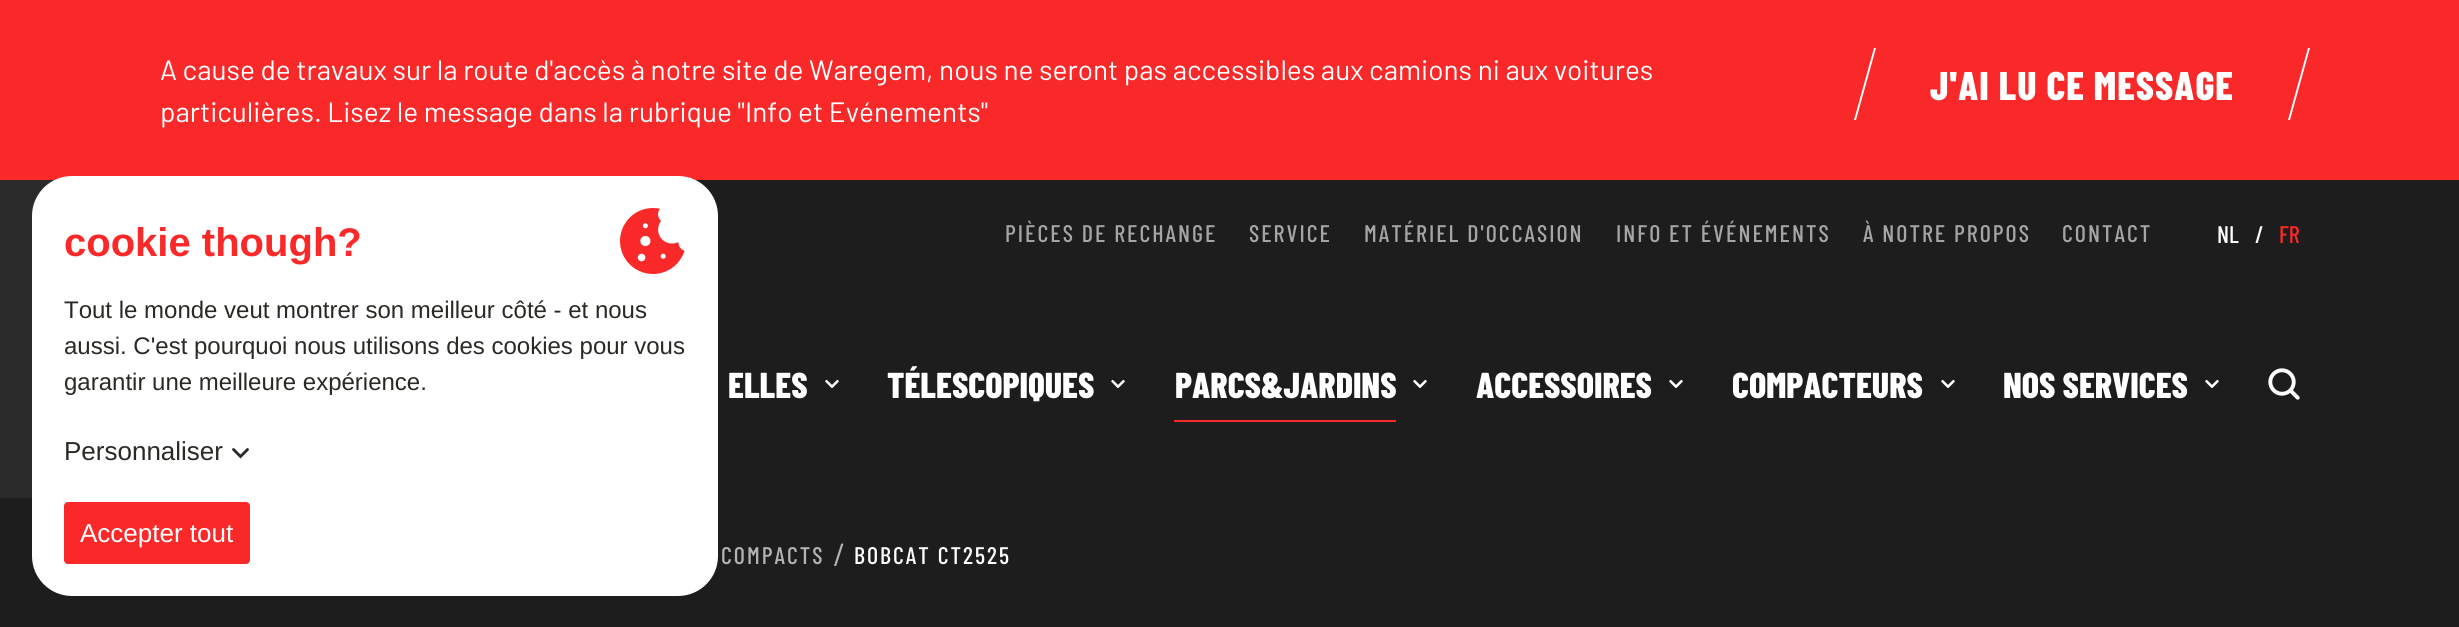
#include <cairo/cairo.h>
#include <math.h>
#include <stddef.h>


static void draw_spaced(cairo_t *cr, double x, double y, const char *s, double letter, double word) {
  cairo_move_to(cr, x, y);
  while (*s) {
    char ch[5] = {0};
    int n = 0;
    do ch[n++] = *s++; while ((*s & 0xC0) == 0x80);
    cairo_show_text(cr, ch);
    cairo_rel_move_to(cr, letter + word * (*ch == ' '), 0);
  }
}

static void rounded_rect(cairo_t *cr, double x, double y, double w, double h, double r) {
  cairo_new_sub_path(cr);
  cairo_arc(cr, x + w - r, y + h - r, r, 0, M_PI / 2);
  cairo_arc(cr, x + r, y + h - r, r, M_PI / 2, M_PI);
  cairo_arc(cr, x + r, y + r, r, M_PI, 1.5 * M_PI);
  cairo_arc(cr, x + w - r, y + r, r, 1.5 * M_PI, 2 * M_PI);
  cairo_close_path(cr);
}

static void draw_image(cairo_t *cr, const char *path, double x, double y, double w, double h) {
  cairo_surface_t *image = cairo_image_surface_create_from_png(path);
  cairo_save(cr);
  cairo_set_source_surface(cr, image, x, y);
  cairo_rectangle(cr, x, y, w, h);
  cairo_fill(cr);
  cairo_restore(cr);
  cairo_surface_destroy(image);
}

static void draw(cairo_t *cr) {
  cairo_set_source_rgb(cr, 30 / 255.0, 29 / 255.0, 29 / 255.0);
  cairo_paint(cr);
  cairo_set_source_rgb(cr, 249 / 255.0, 41 / 255.0, 41 / 255.0);
  cairo_rectangle(cr, 0, 0, 2459, 180);
  cairo_fill(cr);
  cairo_set_source_rgb(cr, 1, 1, 1);
  cairo_new_path(cr);
  cairo_move_to(cr, 2308, 48);
  cairo_line_to(cr, 2310, 48);
  cairo_line_to(cr, 2290, 120);
  cairo_line_to(cr, 2288, 120);
  cairo_close_path(cr);
  cairo_fill(cr);
  cairo_new_path(cr);
  cairo_move_to(cr, 1874, 48);
  cairo_line_to(cr, 1876, 48);
  cairo_line_to(cr, 1856, 120);
  cairo_line_to(cr, 1854, 120);
  cairo_close_path(cr);
  cairo_fill(cr);
  cairo_set_source_rgb(cr, 42 / 255.0, 42 / 255.0, 42 / 255.0);
  cairo_rectangle(cr, 0, 180, 55, 318);
  cairo_fill(cr);
  cairo_set_source_rgb(cr, 1, 1, 1);
  rounded_rect(cr, 32, 176, 686, 420, 40);
  cairo_fill(cr);
  draw_image(cr, "images/1.png", 620, 208, 65, 66);
  cairo_new_path(cr);
  cairo_move_to(cr, 233.5, 449.5);
  cairo_line_to(cr, 240.5, 456.5);
  cairo_line_to(cr, 247.5, 449.5);
  cairo_set_source_rgb(cr, 40 / 255.0, 42 / 255.0, 36 / 255.0);
  cairo_set_line_width(cr, 2.8);
  cairo_set_line_cap(cr, CAIRO_LINE_CAP_ROUND);
  cairo_stroke(cr);
  cairo_set_source_rgb(cr, 249 / 255.0, 41 / 255.0, 41 / 255.0);
  rounded_rect(cr, 64, 502, 186, 62, 4);
  cairo_fill(cr);
  draw_image(cr, "images/2.png", 825, 379, 14, 10);
  draw_image(cr, "images/2.png", 1111, 379, 14, 10);
  cairo_rectangle(cr, 1174, 420, 222, 2);
  cairo_fill(cr);
  draw_image(cr, "images/2.png", 1413, 379, 14, 10);
  draw_image(cr, "images/2.png", 1669, 379, 14, 10);
  draw_image(cr, "images/2.png", 1941, 379, 14, 10);
  draw_image(cr, "images/2.png", 2205, 379, 14, 10);
  draw_image(cr, "images/3.png", 2268, 368, 32, 32);
  cairo_select_font_face(cr, "Barlow", CAIRO_FONT_SLANT_NORMAL, CAIRO_FONT_WEIGHT_NORMAL);
  cairo_set_font_size(cr, 28);
  cairo_set_source_rgb(cr, 1, 1, 1);
  cairo_move_to(cr, 160, 80);
  cairo_show_text(cr, "A cause de travaux sur la route d'accès à notre site de Waregem, nous ne seront pas accessibles aux camions ni aux voitures");
  cairo_move_to(cr, 160, 122);
  cairo_show_text(cr, "particulières. Lisez le message dans la rubrique \"Info et Evénements\"");
  cairo_select_font_face(cr, "Barlow Condensed ExtraBold", CAIRO_FONT_SLANT_NORMAL, CAIRO_FONT_WEIGHT_NORMAL);
  cairo_set_font_size(cr, 40);
  draw_spaced(cr, 1930, 100, "J'AI LU CE MESSAGE", 1, 0);
  cairo_select_font_face(cr, "Liberation Sans", CAIRO_FONT_SLANT_NORMAL, CAIRO_FONT_WEIGHT_BOLD);
  cairo_set_source_rgb(cr, 249 / 255.0, 41 / 255.0, 41 / 255.0);
  cairo_move_to(cr, 64, 256);
  cairo_show_text(cr, "cookie though?");
  cairo_select_font_face(cr, "Liberation Sans", CAIRO_FONT_SLANT_NORMAL, CAIRO_FONT_WEIGHT_NORMAL);
  cairo_set_font_size(cr, 24);
  cairo_set_source_rgb(cr, 40 / 255.0, 42 / 255.0, 36 / 255.0);
  cairo_move_to(cr, 64, 318);
  cairo_show_text(cr, "Tout le monde veut montrer son meilleur côté - et nous");
  cairo_move_to(cr, 64, 354);
  cairo_show_text(cr, "aussi. C'est pourquoi nous utilisons des cookies pour vous");
  cairo_move_to(cr, 64, 390);
  cairo_show_text(cr, "garantir une meilleure expérience.");
  cairo_set_font_size(cr, 26);
  cairo_move_to(cr, 64, 460);
  cairo_show_text(cr, "Personnaliser");
  cairo_set_source_rgb(cr, 1, 1, 1);
  cairo_move_to(cr, 80, 542);
  cairo_show_text(cr, "Accepter tout");
  cairo_select_font_face(cr, "Barlow Condensed Medium", CAIRO_FONT_SLANT_NORMAL, CAIRO_FONT_WEIGHT_NORMAL);
  cairo_set_font_size(cr, 24);
  cairo_set_source_rgb(cr, 165 / 255.0, 165 / 255.0, 165 / 255.0);
  draw_spaced(cr, 1005, 242, "PIÈCES DE RECHANGE", 2, 0);
  draw_spaced(cr, 1249, 242, "SERVICE", 2, 0);
  draw_spaced(cr, 1364, 242, "MATÉRIEL D'OCCASION", 2, 0);
  draw_spaced(cr, 1616, 242, "INFO ET ÉVÉNEMENTS", 2, 0);
  draw_spaced(cr, 1863, 242, "À NOTRE PROPOS", 2, 0);
  draw_spaced(cr, 2062, 242, "CONTACT", 2, 0);
  cairo_set_source_rgb(cr, 1, 1, 1);
  cairo_move_to(cr, 2217, 243);
  cairo_show_text(cr, "NL");
  cairo_move_to(cr, 2255, 243);
  cairo_show_text(cr, "/");
  cairo_set_source_rgb(cr, 249 / 255.0, 41 / 255.0, 41 / 255.0);
  cairo_move_to(cr, 2279, 243);
  cairo_show_text(cr, "FR");
  cairo_select_font_face(cr, "Barlow Condensed ExtraBold", CAIRO_FONT_SLANT_NORMAL, CAIRO_FONT_WEIGHT_NORMAL);
  cairo_set_font_size(cr, 36);
  cairo_set_source_rgb(cr, 1, 1, 1);
  cairo_move_to(cr, 728, 398);
  cairo_show_text(cr, "ELLES");
  cairo_move_to(cr, 887, 398);
  cairo_show_text(cr, "TÉLESCOPIQUES");
  cairo_move_to(cr, 1175, 398);
  cairo_show_text(cr, "PARCS&JARDINS");
  cairo_move_to(cr, 1476, 398);
  cairo_show_text(cr, "ACCESSOIRES");
  cairo_move_to(cr, 1732, 398);
  cairo_show_text(cr, "COMPACTEURS");
  cairo_move_to(cr, 2003, 398);
  cairo_show_text(cr, "NOS SERVICES");
  cairo_select_font_face(cr, "Barlow Condensed Medium", CAIRO_FONT_SLANT_NORMAL, CAIRO_FONT_WEIGHT_NORMAL);
  cairo_set_font_size(cr, 24);
  cairo_set_source_rgb(cr, 179 / 255.0, 179 / 255.0, 179 / 255.0);
  draw_spaced(cr, 721, 564, "COMPACTS", 2, 0);
  cairo_select_font_face(cr, "Barlow", CAIRO_FONT_SLANT_NORMAL, CAIRO_FONT_WEIGHT_NORMAL);
  cairo_set_font_size(cr, 32);
  cairo_move_to(cr, 833, 566);
  cairo_show_text(cr, "/");
  cairo_select_font_face(cr, "Barlow Condensed Medium", CAIRO_FONT_SLANT_NORMAL, CAIRO_FONT_WEIGHT_NORMAL);
  cairo_set_font_size(cr, 24);
  cairo_set_source_rgb(cr, 1, 1, 1);
  draw_spaced(cr, 854, 564, "BOBCAT CT2525", 2, 0);
}

int main(void) {
  cairo_surface_t *surface = cairo_image_surface_create(CAIRO_FORMAT_RGB24, 2459, 627);
  cairo_t *cr = cairo_create(surface);
  cairo_font_options_t *options = cairo_font_options_create();
  cairo_font_options_set_hint_metrics(options, CAIRO_HINT_METRICS_OFF);
  cairo_font_options_set_hint_style(options, CAIRO_HINT_STYLE_NONE);
  cairo_set_font_options(cr, options);
  cairo_set_miter_limit(cr, 4);
  draw(cr);
  cairo_surface_write_to_png(surface, "out.png");
  cairo_font_options_destroy(options);
  cairo_destroy(cr);
  cairo_surface_destroy(surface);
  return 0;
}
